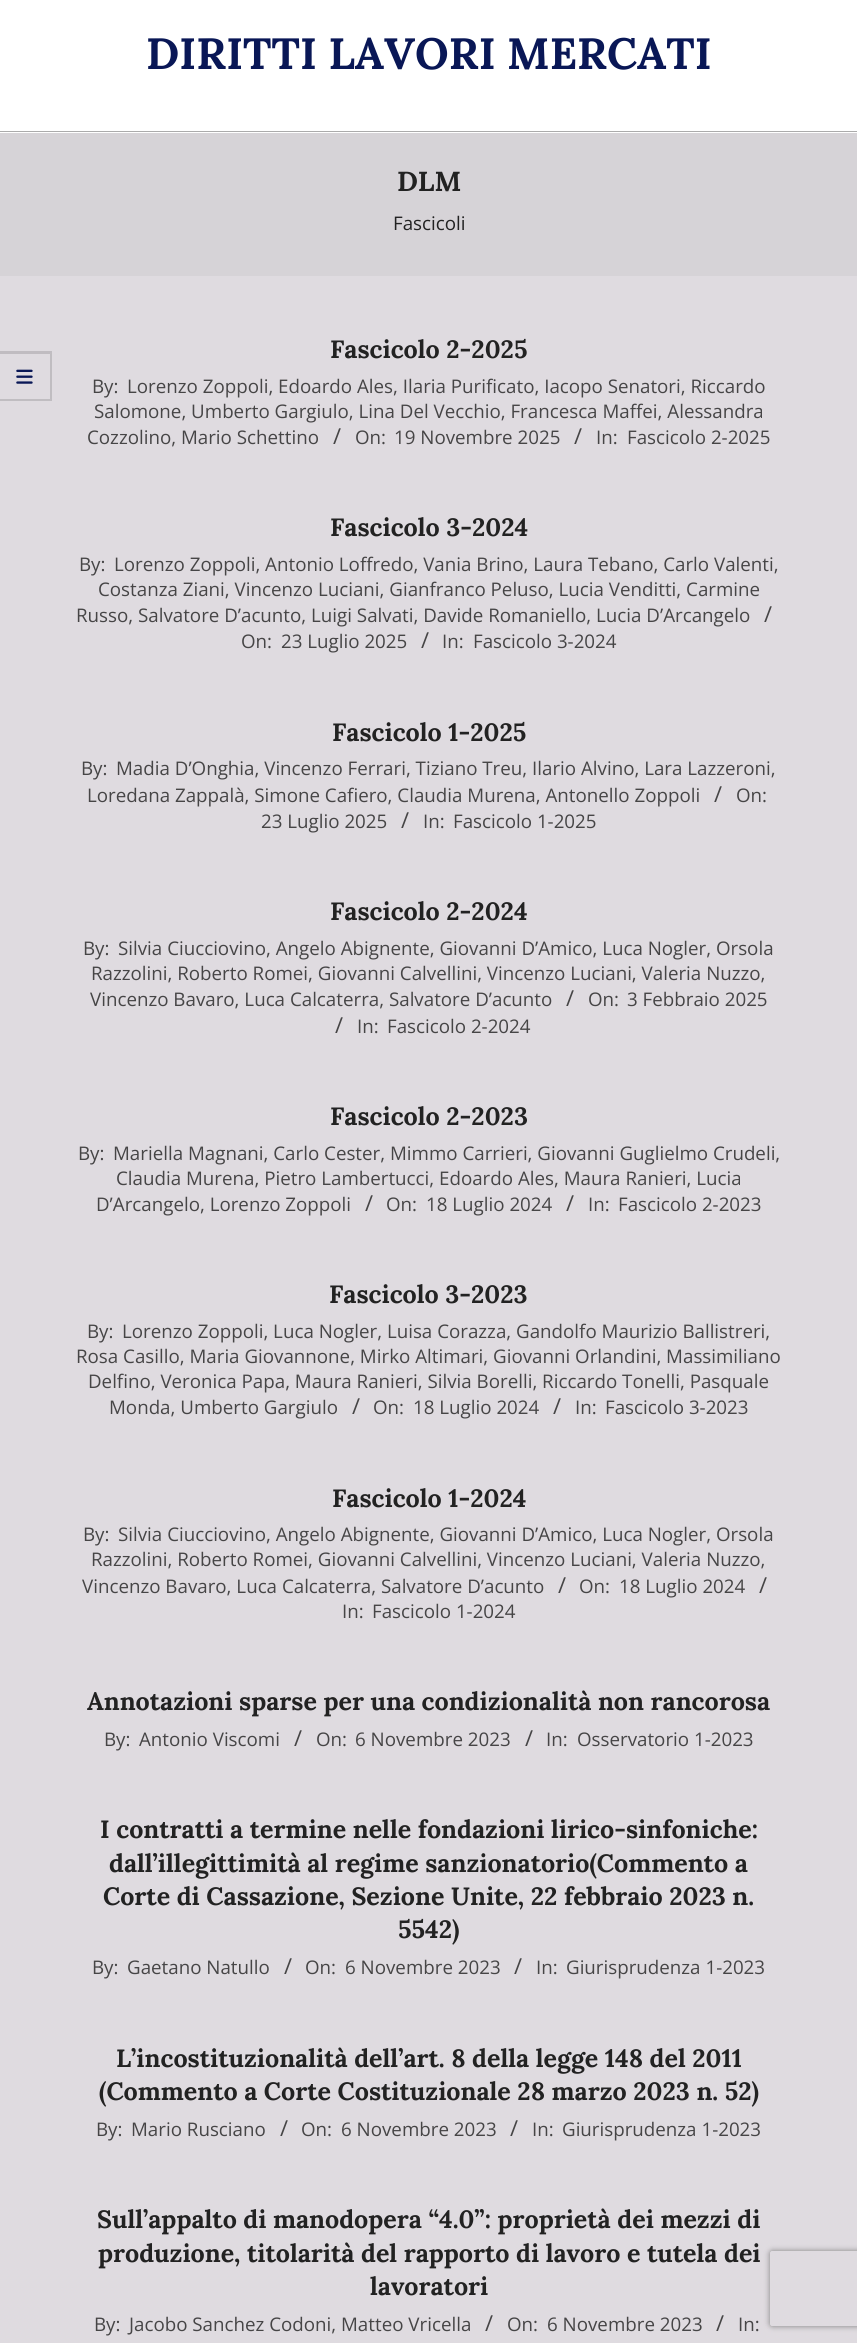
#include <cairo/cairo.h>
#include <math.h>
#include <stddef.h>


static void rounded_rect(cairo_t *cr, double x, double y, double w, double h, double r) {
  cairo_new_sub_path(cr);
  cairo_arc(cr, x + w - r, y + h - r, r, 0, M_PI / 2);
  cairo_arc(cr, x + r, y + h - r, r, M_PI / 2, M_PI);
  cairo_arc(cr, x + r, y + r, r, M_PI, 1.5 * M_PI);
  cairo_arc(cr, x + w - r, y + r, r, 1.5 * M_PI, 2 * M_PI);
  cairo_close_path(cr);
}

static void draw_shadow(cairo_t *cr, double x, double y, double w, double h, double r, double blur, double alpha) {
  cairo_push_group_with_content(cr, CAIRO_CONTENT_ALPHA);
  cairo_set_operator(cr, CAIRO_OPERATOR_SOURCE);
  for (int i = 15; i >= -15 && fmin(w, h) + blur * i / 3 > 0; i -= 2) {
    double e = blur * i / 6;
    cairo_set_source_rgba(cr, 0, 0, 0, alpha * erfc((i - 1) / 8.5) / 2);
    rounded_rect(cr, x - e, y - e, w + 2 * e, h + 2 * e, fmax(0, fmin(r + e + blur * .6, fmin(w, h) / 2 + e)));
    cairo_fill(cr);
  }
  cairo_pattern_t *soft = cairo_pop_group(cr);
  cairo_mask(cr, soft);
  cairo_pattern_destroy(soft);
}

static void draw_image(cairo_t *cr, const char *path, double x, double y, double w, double h) {
  cairo_surface_t *image = cairo_image_surface_create_from_png(path);
  cairo_save(cr);
  cairo_set_source_surface(cr, image, x, y);
  cairo_rectangle(cr, x, y, w, h);
  cairo_fill(cr);
  cairo_restore(cr);
  cairo_surface_destroy(image);
}

static void draw(cairo_t *cr) {
  cairo_set_source_rgb(cr, 1, 1, 1);
  cairo_paint(cr);
  cairo_set_source_rgb(cr, 171 / 255.0, 171 / 255.0, 171 / 255.0);
  cairo_rectangle(cr, 0, 131, 857, 1);
  cairo_fill(cr);
  cairo_set_source_rgb(cr, 223 / 255.0, 219 / 255.0, 224 / 255.0);
  cairo_rectangle(cr, 0, 276, 857, 2067);
  cairo_fill(cr);
  cairo_set_source_rgb(cr, 192 / 255.0, 188 / 255.0, 193 / 255.0);
  cairo_new_path(cr);
  cairo_move_to(cr, 0, 351);
  cairo_line_to(cr, 52, 351);
  cairo_line_to(cr, 50, 354);
  cairo_line_to(cr, 0, 354);
  cairo_close_path(cr);
  cairo_fill(cr);
  cairo_set_source_rgba(cr, 0, 0, 0, 0.14);
  cairo_new_path(cr);
  cairo_move_to(cr, 52, 351);
  cairo_line_to(cr, 52, 401);
  cairo_line_to(cr, 50, 399);
  cairo_line_to(cr, 50, 354);
  cairo_close_path(cr);
  cairo_fill(cr);
  cairo_new_path(cr);
  cairo_move_to(cr, 52, 401);
  cairo_line_to(cr, 0, 401);
  cairo_line_to(cr, 0, 399);
  cairo_line_to(cr, 50, 399);
  cairo_close_path(cr);
  cairo_fill(cr);
  draw_image(cr, "images/1.png", 16, 369, 17, 15);
  cairo_set_source_rgb(cr, 214 / 255.0, 211 / 255.0, 215 / 255.0);
  cairo_rectangle(cr, 0, 133, 857, 143);
  cairo_fill(cr);
  cairo_save(cr);
  cairo_set_fill_rule(cr, CAIRO_FILL_RULE_EVEN_ODD);
  cairo_new_path(cr);
  cairo_move_to(cr, 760, 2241);
  cairo_line_to(cr, 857, 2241);
  cairo_line_to(cr, 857, 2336);
  cairo_line_to(cr, 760, 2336);
  cairo_close_path(cr);
  cairo_move_to(cr, 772.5, 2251);
  cairo_line_to(cr, 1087.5, 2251);
  cairo_curve_to(cr, 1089, 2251, 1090, 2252, 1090, 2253.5);
  cairo_line_to(cr, 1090, 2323.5);
  cairo_curve_to(cr, 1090, 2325, 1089, 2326, 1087.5, 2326);
  cairo_line_to(cr, 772.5, 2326);
  cairo_curve_to(cr, 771, 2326, 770, 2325, 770, 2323.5);
  cairo_line_to(cr, 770, 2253.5);
  cairo_curve_to(cr, 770, 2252, 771, 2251, 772.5, 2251);
  cairo_close_path(cr);
  cairo_clip(cr);
  cairo_set_source_rgb(cr, 128 / 255.0, 128 / 255.0, 128 / 255.0);
  draw_shadow(cr, 770, 2251, 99, 75, 2.5, 3, 1);
  cairo_restore(cr);
  cairo_select_font_face(cr, "Lora", CAIRO_FONT_SLANT_NORMAL, CAIRO_FONT_WEIGHT_BOLD);
  cairo_set_font_size(cr, 43.75);
  cairo_set_source_rgb(cr, 9 / 255.0, 23 / 255.0, 86 / 255.0);
  cairo_move_to(cr, 146, 69);
  cairo_show_text(cr, "DIRITTI LAVORI MERCATI");
  cairo_set_font_size(cr, 27.5);
  cairo_set_source_rgb(cr, 34 / 255.0, 34 / 255.0, 34 / 255.0);
  cairo_move_to(cr, 397, 191);
  cairo_show_text(cr, "DLM");
  cairo_select_font_face(cr, "Open Sans", CAIRO_FONT_SLANT_NORMAL, CAIRO_FONT_WEIGHT_NORMAL);
  cairo_set_font_size(cr, 18.75);
  cairo_move_to(cr, 393, 230);
  cairo_show_text(cr, "Fascicoli");
  cairo_select_font_face(cr, "Lora", CAIRO_FONT_SLANT_NORMAL, CAIRO_FONT_WEIGHT_BOLD);
  cairo_set_font_size(cr, 25);
  cairo_move_to(cr, 330, 358);
  cairo_show_text(cr, "Fascicolo 2-2025");
  cairo_select_font_face(cr, "Open Sans", CAIRO_FONT_SLANT_NORMAL, CAIRO_FONT_WEIGHT_NORMAL);
  cairo_set_font_size(cr, 18.75);
  cairo_set_source_rgb(cr, 70 / 255.0, 69 / 255.0, 70 / 255.0);
  cairo_move_to(cr, 92, 393);
  cairo_show_text(cr, "By:");
  cairo_move_to(cr, 127, 393);
  cairo_show_text(cr, "Lorenzo Zoppoli, Edoardo Ales, Ilaria Purificato, Iacopo Senatori, Riccardo");
  cairo_move_to(cr, 94, 418);
  cairo_show_text(cr, "Salomone, Umberto Gargiulo, Lina Del Vecchio, Francesca Maffei, Alessandra");
  cairo_move_to(cr, 87, 444);
  cairo_show_text(cr, "Cozzolino, Mario Schettino");
  cairo_set_font_size(cr, 22);
  cairo_move_to(cr, 333, 444);
  cairo_show_text(cr, "/");
  cairo_set_font_size(cr, 18.75);
  cairo_move_to(cr, 355, 444);
  cairo_show_text(cr, "On:");
  cairo_move_to(cr, 394, 444);
  cairo_show_text(cr, "19 Novembre 2025");
  cairo_set_font_size(cr, 22);
  cairo_move_to(cr, 574, 444);
  cairo_show_text(cr, "/");
  cairo_set_font_size(cr, 18.75);
  cairo_move_to(cr, 596, 444);
  cairo_show_text(cr, "In:");
  cairo_move_to(cr, 627, 444);
  cairo_show_text(cr, "Fascicolo 2-2025");
  cairo_select_font_face(cr, "Lora", CAIRO_FONT_SLANT_NORMAL, CAIRO_FONT_WEIGHT_BOLD);
  cairo_set_font_size(cr, 25);
  cairo_set_source_rgb(cr, 34 / 255.0, 34 / 255.0, 34 / 255.0);
  cairo_move_to(cr, 330, 536);
  cairo_show_text(cr, "Fascicolo 3-2024");
  cairo_select_font_face(cr, "Open Sans", CAIRO_FONT_SLANT_NORMAL, CAIRO_FONT_WEIGHT_NORMAL);
  cairo_set_font_size(cr, 18.75);
  cairo_set_source_rgb(cr, 70 / 255.0, 69 / 255.0, 70 / 255.0);
  cairo_move_to(cr, 79, 571);
  cairo_show_text(cr, "By:");
  cairo_move_to(cr, 114, 571);
  cairo_show_text(cr, "Lorenzo Zoppoli, Antonio Loffredo, Vania Brino, Laura Tebano, Carlo Valenti,");
  cairo_move_to(cr, 98, 596);
  cairo_show_text(cr, "Costanza Ziani, Vincenzo Luciani, Gianfranco Peluso, Lucia Venditti, Carmine");
  cairo_move_to(cr, 76, 622);
  cairo_show_text(cr, "Russo, Salvatore D’acunto, Luigi Salvati, Davide Romaniello, Lucia D’Arcangelo");
  cairo_set_font_size(cr, 22);
  cairo_move_to(cr, 764, 622);
  cairo_show_text(cr, "/");
  cairo_set_font_size(cr, 18.75);
  cairo_move_to(cr, 241, 648);
  cairo_show_text(cr, "On:");
  cairo_move_to(cr, 281, 648);
  cairo_show_text(cr, "23 Luglio 2025");
  cairo_set_font_size(cr, 22);
  cairo_move_to(cr, 421, 648);
  cairo_show_text(cr, "/");
  cairo_set_font_size(cr, 18.75);
  cairo_move_to(cr, 442, 648);
  cairo_show_text(cr, "In:");
  cairo_move_to(cr, 473, 648);
  cairo_show_text(cr, "Fascicolo 3-2024");
  cairo_select_font_face(cr, "Lora", CAIRO_FONT_SLANT_NORMAL, CAIRO_FONT_WEIGHT_BOLD);
  cairo_set_font_size(cr, 25);
  cairo_set_source_rgb(cr, 34 / 255.0, 34 / 255.0, 34 / 255.0);
  cairo_move_to(cr, 332, 741);
  cairo_show_text(cr, "Fascicolo 1-2025");
  cairo_select_font_face(cr, "Open Sans", CAIRO_FONT_SLANT_NORMAL, CAIRO_FONT_WEIGHT_NORMAL);
  cairo_set_font_size(cr, 18.75);
  cairo_set_source_rgb(cr, 70 / 255.0, 69 / 255.0, 70 / 255.0);
  cairo_move_to(cr, 81, 775);
  cairo_show_text(cr, "By:");
  cairo_move_to(cr, 116, 775);
  cairo_show_text(cr, "Madia D’Onghia, Vincenzo Ferrari, Tiziano Treu, Ilario Alvino, Lara Lazzeroni,");
  cairo_move_to(cr, 87, 802);
  cairo_show_text(cr, "Loredana Zappalà, Simone Cafiero, Claudia Murena, Antonello Zoppoli");
  cairo_set_font_size(cr, 22);
  cairo_move_to(cr, 714, 802);
  cairo_show_text(cr, "/");
  cairo_set_font_size(cr, 18.75);
  cairo_move_to(cr, 736, 802);
  cairo_show_text(cr, "On:");
  cairo_move_to(cr, 261, 828);
  cairo_show_text(cr, "23 Luglio 2025");
  cairo_set_font_size(cr, 22);
  cairo_move_to(cr, 401, 828);
  cairo_show_text(cr, "/");
  cairo_set_font_size(cr, 18.75);
  cairo_move_to(cr, 423, 828);
  cairo_show_text(cr, "In:");
  cairo_move_to(cr, 453, 828);
  cairo_show_text(cr, "Fascicolo 1-2025");
  cairo_select_font_face(cr, "Lora", CAIRO_FONT_SLANT_NORMAL, CAIRO_FONT_WEIGHT_BOLD);
  cairo_set_font_size(cr, 25);
  cairo_set_source_rgb(cr, 34 / 255.0, 34 / 255.0, 34 / 255.0);
  cairo_move_to(cr, 330, 920);
  cairo_show_text(cr, "Fascicolo 2-2024");
  cairo_select_font_face(cr, "Open Sans", CAIRO_FONT_SLANT_NORMAL, CAIRO_FONT_WEIGHT_NORMAL);
  cairo_set_font_size(cr, 18.75);
  cairo_set_source_rgb(cr, 70 / 255.0, 69 / 255.0, 70 / 255.0);
  cairo_move_to(cr, 83, 955);
  cairo_show_text(cr, "By:");
  cairo_move_to(cr, 118, 955);
  cairo_show_text(cr, "Silvia Ciucciovino, Angelo Abignente, Giovanni D’Amico, Luca Nogler, Orsola");
  cairo_move_to(cr, 91, 980);
  cairo_show_text(cr, "Razzolini, Roberto Romei, Giovanni Calvellini, Vincenzo Luciani, Valeria Nuzzo,");
  cairo_move_to(cr, 90, 1006);
  cairo_show_text(cr, "Vincenzo Bavaro, Luca Calcaterra, Salvatore D’acunto");
  cairo_set_font_size(cr, 22);
  cairo_move_to(cr, 566, 1006);
  cairo_show_text(cr, "/");
  cairo_set_font_size(cr, 18.75);
  cairo_move_to(cr, 588, 1006);
  cairo_show_text(cr, "On:");
  cairo_move_to(cr, 627, 1006);
  cairo_show_text(cr, "3 Febbraio 2025");
  cairo_set_font_size(cr, 22);
  cairo_move_to(cr, 335, 1033);
  cairo_show_text(cr, "/");
  cairo_set_font_size(cr, 18.75);
  cairo_move_to(cr, 357, 1033);
  cairo_show_text(cr, "In:");
  cairo_move_to(cr, 387, 1033);
  cairo_show_text(cr, "Fascicolo 2-2024");
  cairo_select_font_face(cr, "Lora", CAIRO_FONT_SLANT_NORMAL, CAIRO_FONT_WEIGHT_BOLD);
  cairo_set_font_size(cr, 25);
  cairo_set_source_rgb(cr, 34 / 255.0, 34 / 255.0, 34 / 255.0);
  cairo_move_to(cr, 330, 1125);
  cairo_show_text(cr, "Fascicolo 2-2023");
  cairo_select_font_face(cr, "Open Sans", CAIRO_FONT_SLANT_NORMAL, CAIRO_FONT_WEIGHT_NORMAL);
  cairo_set_font_size(cr, 18.75);
  cairo_set_source_rgb(cr, 70 / 255.0, 69 / 255.0, 70 / 255.0);
  cairo_move_to(cr, 78, 1160);
  cairo_show_text(cr, "By:");
  cairo_move_to(cr, 113, 1160);
  cairo_show_text(cr, "Mariella Magnani, Carlo Cester, Mimmo Carrieri, Giovanni Guglielmo Crudeli,");
  cairo_move_to(cr, 116, 1185);
  cairo_show_text(cr, "Claudia Murena, Pietro Lambertucci, Edoardo Ales, Maura Ranieri, Lucia");
  cairo_move_to(cr, 96, 1211);
  cairo_show_text(cr, "D’Arcangelo, Lorenzo Zoppoli");
  cairo_set_font_size(cr, 22);
  cairo_move_to(cr, 365, 1211);
  cairo_show_text(cr, "/");
  cairo_set_font_size(cr, 18.75);
  cairo_move_to(cr, 386, 1211);
  cairo_show_text(cr, "On:");
  cairo_move_to(cr, 426, 1211);
  cairo_show_text(cr, "18 Luglio 2024");
  cairo_set_font_size(cr, 22);
  cairo_move_to(cr, 566, 1211);
  cairo_show_text(cr, "/");
  cairo_set_font_size(cr, 18.75);
  cairo_move_to(cr, 588, 1211);
  cairo_show_text(cr, "In:");
  cairo_move_to(cr, 618, 1211);
  cairo_show_text(cr, "Fascicolo 2-2023");
  cairo_select_font_face(cr, "Lora", CAIRO_FONT_SLANT_NORMAL, CAIRO_FONT_WEIGHT_BOLD);
  cairo_set_font_size(cr, 25);
  cairo_set_source_rgb(cr, 34 / 255.0, 34 / 255.0, 34 / 255.0);
  cairo_move_to(cr, 329, 1303);
  cairo_show_text(cr, "Fascicolo 3-2023");
  cairo_select_font_face(cr, "Open Sans", CAIRO_FONT_SLANT_NORMAL, CAIRO_FONT_WEIGHT_NORMAL);
  cairo_set_font_size(cr, 18.75);
  cairo_set_source_rgb(cr, 70 / 255.0, 69 / 255.0, 70 / 255.0);
  cairo_move_to(cr, 87, 1338);
  cairo_show_text(cr, "By:");
  cairo_move_to(cr, 122, 1338);
  cairo_show_text(cr, "Lorenzo Zoppoli, Luca Nogler, Luisa Corazza, Gandolfo Maurizio Ballistreri,");
  cairo_move_to(cr, 76, 1363);
  cairo_show_text(cr, "Rosa Casillo, Maria Giovannone, Mirko Altimari, Giovanni Orlandini, Massimiliano");
  cairo_move_to(cr, 88, 1388);
  cairo_show_text(cr, "Delfino, Veronica Papa, Maura Ranieri, Silvia Borelli, Riccardo Tonelli, Pasquale");
  cairo_move_to(cr, 109, 1414);
  cairo_show_text(cr, "Monda, Umberto Gargiulo");
  cairo_set_font_size(cr, 22);
  cairo_move_to(cr, 352, 1414);
  cairo_show_text(cr, "/");
  cairo_set_font_size(cr, 18.75);
  cairo_move_to(cr, 373, 1414);
  cairo_show_text(cr, "On:");
  cairo_move_to(cr, 413, 1414);
  cairo_show_text(cr, "18 Luglio 2024");
  cairo_set_font_size(cr, 22);
  cairo_move_to(cr, 553, 1414);
  cairo_show_text(cr, "/");
  cairo_set_font_size(cr, 18.75);
  cairo_move_to(cr, 575, 1414);
  cairo_show_text(cr, "In:");
  cairo_move_to(cr, 605, 1414);
  cairo_show_text(cr, "Fascicolo 3-2023");
  cairo_select_font_face(cr, "Lora", CAIRO_FONT_SLANT_NORMAL, CAIRO_FONT_WEIGHT_BOLD);
  cairo_set_font_size(cr, 25);
  cairo_set_source_rgb(cr, 34 / 255.0, 34 / 255.0, 34 / 255.0);
  cairo_move_to(cr, 332, 1507);
  cairo_show_text(cr, "Fascicolo 1-2024");
  cairo_select_font_face(cr, "Open Sans", CAIRO_FONT_SLANT_NORMAL, CAIRO_FONT_WEIGHT_NORMAL);
  cairo_set_font_size(cr, 18.75);
  cairo_set_source_rgb(cr, 70 / 255.0, 69 / 255.0, 70 / 255.0);
  cairo_move_to(cr, 83, 1541);
  cairo_show_text(cr, "By:");
  cairo_move_to(cr, 118, 1541);
  cairo_show_text(cr, "Silvia Ciucciovino, Angelo Abignente, Giovanni D’Amico, Luca Nogler, Orsola");
  cairo_move_to(cr, 91, 1566);
  cairo_show_text(cr, "Razzolini, Roberto Romei, Giovanni Calvellini, Vincenzo Luciani, Valeria Nuzzo,");
  cairo_move_to(cr, 82, 1593);
  cairo_show_text(cr, "Vincenzo Bavaro, Luca Calcaterra, Salvatore D’acunto");
  cairo_set_font_size(cr, 22);
  cairo_move_to(cr, 558, 1593);
  cairo_show_text(cr, "/");
  cairo_set_font_size(cr, 18.75);
  cairo_move_to(cr, 579, 1593);
  cairo_show_text(cr, "On:");
  cairo_move_to(cr, 619, 1593);
  cairo_show_text(cr, "18 Luglio 2024");
  cairo_set_font_size(cr, 22);
  cairo_move_to(cr, 759, 1593);
  cairo_show_text(cr, "/");
  cairo_set_font_size(cr, 18.75);
  cairo_move_to(cr, 342, 1618);
  cairo_show_text(cr, "In:");
  cairo_move_to(cr, 372, 1618);
  cairo_show_text(cr, "Fascicolo 1-2024");
  cairo_select_font_face(cr, "Lora", CAIRO_FONT_SLANT_NORMAL, CAIRO_FONT_WEIGHT_BOLD);
  cairo_set_font_size(cr, 25);
  cairo_set_source_rgb(cr, 34 / 255.0, 34 / 255.0, 34 / 255.0);
  cairo_move_to(cr, 87, 1710);
  cairo_show_text(cr, "Annotazioni sparse per una condizionalità non rancorosa");
  cairo_select_font_face(cr, "Open Sans", CAIRO_FONT_SLANT_NORMAL, CAIRO_FONT_WEIGHT_NORMAL);
  cairo_set_font_size(cr, 18.75);
  cairo_set_source_rgb(cr, 70 / 255.0, 69 / 255.0, 70 / 255.0);
  cairo_move_to(cr, 104, 1746);
  cairo_show_text(cr, "By:");
  cairo_move_to(cr, 139, 1746);
  cairo_show_text(cr, "Antonio Viscomi");
  cairo_set_font_size(cr, 22);
  cairo_move_to(cr, 294, 1746);
  cairo_show_text(cr, "/");
  cairo_set_font_size(cr, 18.75);
  cairo_move_to(cr, 316, 1746);
  cairo_show_text(cr, "On:");
  cairo_move_to(cr, 355, 1746);
  cairo_show_text(cr, "6 Novembre 2023");
  cairo_set_font_size(cr, 22);
  cairo_move_to(cr, 525, 1746);
  cairo_show_text(cr, "/");
  cairo_set_font_size(cr, 18.75);
  cairo_move_to(cr, 546, 1746);
  cairo_show_text(cr, "In:");
  cairo_move_to(cr, 577, 1746);
  cairo_show_text(cr, "Osservatorio 1-2023");
  cairo_select_font_face(cr, "Lora", CAIRO_FONT_SLANT_NORMAL, CAIRO_FONT_WEIGHT_BOLD);
  cairo_set_font_size(cr, 25);
  cairo_set_source_rgb(cr, 34 / 255.0, 34 / 255.0, 34 / 255.0);
  cairo_move_to(cr, 100, 1838);
  cairo_show_text(cr, "I contratti a termine nelle fondazioni lirico-sinfoniche:");
  cairo_move_to(cr, 109, 1872);
  cairo_show_text(cr, "dall’illegittimità al regime sanzionatorio(Commento a");
  cairo_move_to(cr, 103, 1905);
  cairo_show_text(cr, "Corte di Cassazione, Sezione Unite, 22 febbraio 2023 n.");
  cairo_move_to(cr, 398, 1938);
  cairo_show_text(cr, "5542)");
  cairo_select_font_face(cr, "Open Sans", CAIRO_FONT_SLANT_NORMAL, CAIRO_FONT_WEIGHT_NORMAL);
  cairo_set_font_size(cr, 18.75);
  cairo_set_source_rgb(cr, 70 / 255.0, 69 / 255.0, 70 / 255.0);
  cairo_move_to(cr, 92, 1974);
  cairo_show_text(cr, "By:");
  cairo_move_to(cr, 127, 1974);
  cairo_show_text(cr, "Gaetano Natullo");
  cairo_set_font_size(cr, 22);
  cairo_move_to(cr, 284, 1974);
  cairo_show_text(cr, "/");
  cairo_set_font_size(cr, 18.75);
  cairo_move_to(cr, 305, 1974);
  cairo_show_text(cr, "On:");
  cairo_move_to(cr, 345, 1974);
  cairo_show_text(cr, "6 Novembre 2023");
  cairo_set_font_size(cr, 22);
  cairo_move_to(cr, 514, 1974);
  cairo_show_text(cr, "/");
  cairo_set_font_size(cr, 18.75);
  cairo_move_to(cr, 536, 1974);
  cairo_show_text(cr, "In:");
  cairo_move_to(cr, 566, 1974);
  cairo_show_text(cr, "Giurisprudenza 1-2023");
  cairo_select_font_face(cr, "Lora", CAIRO_FONT_SLANT_NORMAL, CAIRO_FONT_WEIGHT_BOLD);
  cairo_set_font_size(cr, 25);
  cairo_set_source_rgb(cr, 34 / 255.0, 34 / 255.0, 34 / 255.0);
  cairo_move_to(cr, 116, 2067);
  cairo_show_text(cr, "L’incostituzionalità dell’art. 8 della legge 148 del 2011");
  cairo_move_to(cr, 99, 2100);
  cairo_show_text(cr, "(Commento a Corte Costituzionale 28 marzo 2023 n. 52)");
  cairo_select_font_face(cr, "Open Sans", CAIRO_FONT_SLANT_NORMAL, CAIRO_FONT_WEIGHT_NORMAL);
  cairo_set_font_size(cr, 18.75);
  cairo_set_source_rgb(cr, 70 / 255.0, 69 / 255.0, 70 / 255.0);
  cairo_move_to(cr, 96, 2136);
  cairo_show_text(cr, "By:");
  cairo_move_to(cr, 131, 2136);
  cairo_show_text(cr, "Mario Rusciano");
  cairo_set_font_size(cr, 22);
  cairo_move_to(cr, 280, 2136);
  cairo_show_text(cr, "/");
  cairo_set_font_size(cr, 18.75);
  cairo_move_to(cr, 301, 2136);
  cairo_show_text(cr, "On:");
  cairo_move_to(cr, 341, 2136);
  cairo_show_text(cr, "6 Novembre 2023");
  cairo_set_font_size(cr, 22);
  cairo_move_to(cr, 510, 2136);
  cairo_show_text(cr, "/");
  cairo_set_font_size(cr, 18.75);
  cairo_move_to(cr, 532, 2136);
  cairo_show_text(cr, "In:");
  cairo_move_to(cr, 562, 2136);
  cairo_show_text(cr, "Giurisprudenza 1-2023");
  cairo_select_font_face(cr, "Lora", CAIRO_FONT_SLANT_NORMAL, CAIRO_FONT_WEIGHT_BOLD);
  cairo_set_font_size(cr, 25);
  cairo_set_source_rgb(cr, 34 / 255.0, 34 / 255.0, 34 / 255.0);
  cairo_move_to(cr, 97, 2228);
  cairo_show_text(cr, "Sull’appalto di manodopera “4.0”: proprietà dei mezzi di");
  cairo_move_to(cr, 98, 2262);
  cairo_show_text(cr, "produzione, titolarità del rapporto di lavoro e tutela dei");
  cairo_move_to(cr, 370, 2295);
  cairo_show_text(cr, "lavoratori");
  cairo_select_font_face(cr, "Open Sans", CAIRO_FONT_SLANT_NORMAL, CAIRO_FONT_WEIGHT_NORMAL);
  cairo_set_font_size(cr, 18.75);
  cairo_set_source_rgb(cr, 70 / 255.0, 69 / 255.0, 70 / 255.0);
  cairo_move_to(cr, 94, 2331);
  cairo_show_text(cr, "By:");
  cairo_move_to(cr, 129, 2331);
  cairo_show_text(cr, "Jacobo Sanchez Codoni, Matteo Vricella");
  cairo_set_font_size(cr, 22);
  cairo_move_to(cr, 485, 2331);
  cairo_show_text(cr, "/");
  cairo_set_font_size(cr, 18.75);
  cairo_move_to(cr, 507, 2331);
  cairo_show_text(cr, "On:");
  cairo_move_to(cr, 547, 2331);
  cairo_show_text(cr, "6 Novembre 2023");
  cairo_set_font_size(cr, 22);
  cairo_move_to(cr, 716, 2331);
  cairo_show_text(cr, "/");
  cairo_set_font_size(cr, 18.75);
  cairo_move_to(cr, 738, 2331);
  cairo_show_text(cr, "In:");
}

int main(void) {
  cairo_surface_t *surface = cairo_image_surface_create(CAIRO_FORMAT_RGB24, 857, 2343);
  cairo_t *cr = cairo_create(surface);
  cairo_font_options_t *options = cairo_font_options_create();
  cairo_font_options_set_hint_metrics(options, CAIRO_HINT_METRICS_OFF);
  cairo_font_options_set_hint_style(options, CAIRO_HINT_STYLE_NONE);
  cairo_set_font_options(cr, options);
  cairo_set_miter_limit(cr, 4);
  draw(cr);
  cairo_surface_write_to_png(surface, "out.png");
  cairo_font_options_destroy(options);
  cairo_destroy(cr);
  cairo_surface_destroy(surface);
  return 0;
}
